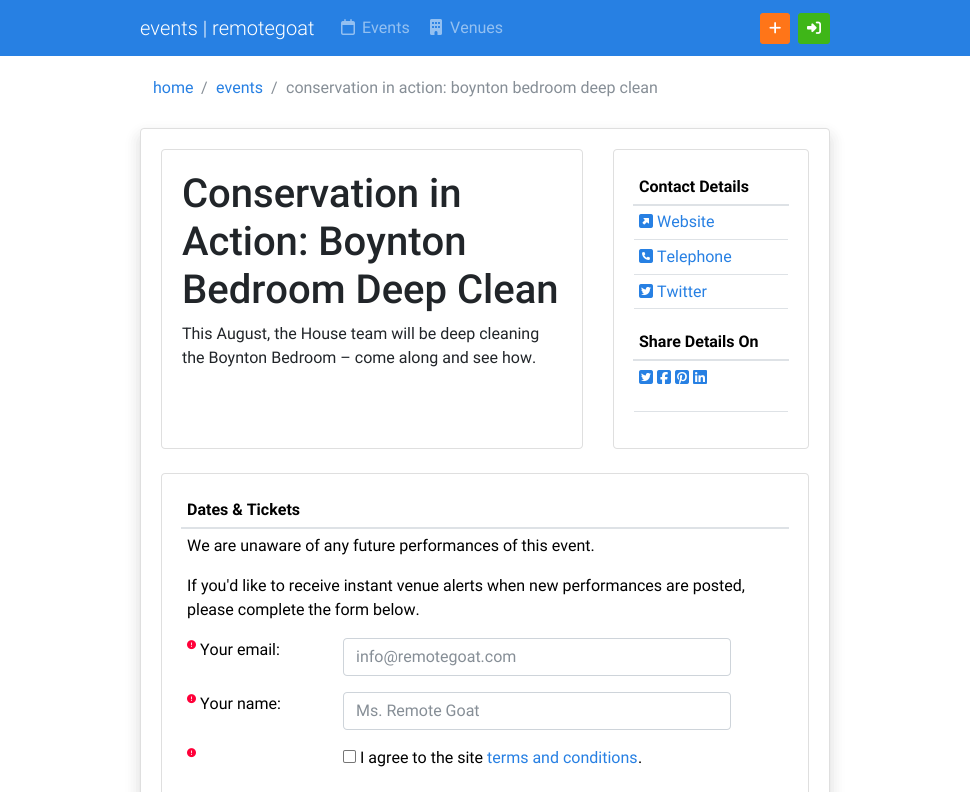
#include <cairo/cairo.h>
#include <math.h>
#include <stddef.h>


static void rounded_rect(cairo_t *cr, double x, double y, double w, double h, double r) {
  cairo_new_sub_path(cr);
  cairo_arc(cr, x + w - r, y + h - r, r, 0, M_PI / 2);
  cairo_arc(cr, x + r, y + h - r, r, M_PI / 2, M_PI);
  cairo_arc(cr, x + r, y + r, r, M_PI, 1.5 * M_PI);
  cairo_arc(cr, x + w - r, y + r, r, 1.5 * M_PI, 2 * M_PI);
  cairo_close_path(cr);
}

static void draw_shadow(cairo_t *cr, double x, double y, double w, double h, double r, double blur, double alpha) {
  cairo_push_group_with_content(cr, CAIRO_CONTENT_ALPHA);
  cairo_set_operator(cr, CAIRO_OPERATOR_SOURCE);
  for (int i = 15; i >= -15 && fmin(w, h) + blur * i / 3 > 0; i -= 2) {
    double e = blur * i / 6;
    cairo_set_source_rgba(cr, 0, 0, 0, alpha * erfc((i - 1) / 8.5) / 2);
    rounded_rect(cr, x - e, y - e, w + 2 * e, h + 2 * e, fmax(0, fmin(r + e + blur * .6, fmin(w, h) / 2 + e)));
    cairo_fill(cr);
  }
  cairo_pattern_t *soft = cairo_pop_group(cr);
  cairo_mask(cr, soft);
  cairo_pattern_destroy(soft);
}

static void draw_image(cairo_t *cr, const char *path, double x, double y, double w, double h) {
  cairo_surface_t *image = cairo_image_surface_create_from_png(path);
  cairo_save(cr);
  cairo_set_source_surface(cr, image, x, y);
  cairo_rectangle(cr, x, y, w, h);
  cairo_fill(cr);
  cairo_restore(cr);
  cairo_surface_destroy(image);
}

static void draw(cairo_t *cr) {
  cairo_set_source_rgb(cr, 1, 1, 1);
  cairo_paint(cr);
  cairo_set_source_rgb(cr, 39 / 255.0, 128 / 255.0, 227 / 255.0);
  cairo_rectangle(cr, 0, 0, 970, 56);
  cairo_fill(cr);
  draw_image(cr, "images/1.png", 341, 19, 14, 16);
  draw_image(cr, "images/2.png", 430, 19, 12, 16);
  cairo_set_source_rgb(cr, 1, 117 / 255.0, 24 / 255.0);
  rounded_rect(cr, 760.5, 13.5, 29, 30, 2.5);
  cairo_fill_preserve(cr);
  cairo_set_line_width(cr, 1);
  cairo_stroke(cr);
  draw_image(cr, "images/3.png", 769, 22, 12, 12);
  cairo_set_source_rgb(cr, 63 / 255.0, 182 / 255.0, 24 / 255.0);
  rounded_rect(cr, 798.5, 13.5, 31, 30, 2.5);
  cairo_fill_preserve(cr);
  cairo_stroke(cr);
  draw_image(cr, "images/4.png", 807, 21, 14, 13);
  cairo_save(cr);
  cairo_set_fill_rule(cr, CAIRO_FILL_RULE_EVEN_ODD);
  cairo_new_path(cr);
  cairo_move_to(cr, 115, 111);
  cairo_line_to(cr, 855, 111);
  cairo_line_to(cr, 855, 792);
  cairo_line_to(cr, 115, 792);
  cairo_close_path(cr);
  cairo_move_to(cr, 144, 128);
  cairo_line_to(cr, 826, 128);
  cairo_curve_to(cr, 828, 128, 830, 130, 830, 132);
  cairo_line_to(cr, 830, 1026);
  cairo_curve_to(cr, 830, 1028, 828, 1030, 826, 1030);
  cairo_line_to(cr, 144, 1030);
  cairo_curve_to(cr, 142, 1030, 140, 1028, 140, 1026);
  cairo_line_to(cr, 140, 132);
  cairo_curve_to(cr, 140, 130, 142, 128, 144, 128);
  cairo_close_path(cr);
  cairo_clip(cr);
  cairo_set_source_rgb(cr, 0, 0, 0);
  draw_shadow(cr, 140, 136, 690, 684, 4, 8, 0.15);
  cairo_restore(cr);
  rounded_rect(cr, 140.5, 128.5, 689, 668, 3.5);
  cairo_set_source_rgb(cr, 223 / 255.0, 223 / 255.0, 223 / 255.0);
  cairo_stroke(cr);
  rounded_rect(cr, 161.5, 149.5, 421, 299, 3.5);
  cairo_stroke(cr);
  rounded_rect(cr, 613.5, 149.5, 195, 299, 3.5);
  cairo_stroke(cr);
  cairo_set_source_rgb(cr, 222 / 255.0, 226 / 255.0, 230 / 255.0);
  cairo_rectangle(cr, 633, 204, 156, 2);
  cairo_fill(cr);
  draw_image(cr, "images/5.png", 639, 214, 14, 14);
  cairo_rectangle(cr, 634, 239, 154, 1);
  cairo_fill(cr);
  draw_image(cr, "images/6.png", 639, 249, 14, 14);
  cairo_rectangle(cr, 634, 274, 154, 1);
  cairo_fill(cr);
  cairo_rectangle(cr, 634, 308, 154, 1);
  cairo_fill(cr);
  draw_image(cr, "images/7.png", 639, 284, 14, 14);
  cairo_rectangle(cr, 633, 359, 156, 2);
  cairo_fill(cr);
  cairo_rectangle(cr, 634, 411, 154, 1);
  cairo_fill(cr);
  draw_image(cr, "images/7.png", 639, 370, 14, 14);
  draw_image(cr, "images/8.png", 657, 370, 14, 14);
  draw_image(cr, "images/9.png", 675, 370, 14, 14);
  draw_image(cr, "images/10.png", 693, 370, 14, 14);
  rounded_rect(cr, 161.5, 473.5, 647, 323, 3.5);
  cairo_set_source_rgb(cr, 223 / 255.0, 223 / 255.0, 223 / 255.0);
  cairo_stroke(cr);
  cairo_set_source_rgb(cr, 222 / 255.0, 226 / 255.0, 230 / 255.0);
  cairo_rectangle(cr, 181, 527, 608, 2);
  cairo_fill(cr);
  draw_image(cr, "images/11.png", 187, 640, 9, 10);
  rounded_rect(cr, 343.5, 638.5, 387, 37, 3.5);
  cairo_set_source_rgb(cr, 206 / 255.0, 212 / 255.0, 218 / 255.0);
  cairo_stroke(cr);
  draw_image(cr, "images/11.png", 187, 694, 9, 10);
  rounded_rect(cr, 343.5, 692.5, 387, 37, 3.5);
  cairo_stroke(cr);
  draw_image(cr, "images/11.png", 187, 748, 9, 10);
  rounded_rect(cr, 343.5, 750.5, 12, 12, 1.5);
  cairo_set_source_rgb(cr, 118 / 255.0, 118 / 255.0, 118 / 255.0);
  cairo_stroke(cr);
  cairo_select_font_face(cr, "Roboto Light", CAIRO_FONT_SLANT_NORMAL, CAIRO_FONT_WEIGHT_NORMAL);
  cairo_set_font_size(cr, 20);
  cairo_set_source_rgb(cr, 1, 1, 1);
  cairo_move_to(cr, 140, 35);
  cairo_show_text(cr, "events | remotegoat");
  cairo_select_font_face(cr, "Roboto", CAIRO_FONT_SLANT_NORMAL, CAIRO_FONT_WEIGHT_NORMAL);
  cairo_set_font_size(cr, 16);
  cairo_set_source_rgb(cr, 147 / 255.0, 192 / 255.0, 241 / 255.0);
  cairo_move_to(cr, 362, 33);
  cairo_show_text(cr, "Events");
  cairo_move_to(cr, 450, 33);
  cairo_show_text(cr, "Venues");
  cairo_set_source_rgb(cr, 39 / 255.0, 128 / 255.0, 227 / 255.0);
  cairo_move_to(cr, 153, 93);
  cairo_show_text(cr, "home");
  cairo_set_source_rgb(cr, 134 / 255.0, 142 / 255.0, 150 / 255.0);
  cairo_move_to(cr, 201, 93);
  cairo_show_text(cr, "/");
  cairo_set_source_rgb(cr, 39 / 255.0, 128 / 255.0, 227 / 255.0);
  cairo_move_to(cr, 216, 93);
  cairo_show_text(cr, "events");
  cairo_set_source_rgb(cr, 134 / 255.0, 142 / 255.0, 150 / 255.0);
  cairo_move_to(cr, 271, 93);
  cairo_show_text(cr, "/");
  cairo_move_to(cr, 286, 93);
  cairo_show_text(cr, "conservation in action: boynton bedroom deep clean");
  cairo_select_font_face(cr, "Roboto Medium", CAIRO_FONT_SLANT_NORMAL, CAIRO_FONT_WEIGHT_NORMAL);
  cairo_set_font_size(cr, 40);
  cairo_set_source_rgb(cr, 33 / 255.0, 37 / 255.0, 41 / 255.0);
  cairo_move_to(cr, 182, 207);
  cairo_show_text(cr, "Conservation in");
  cairo_move_to(cr, 182, 255);
  cairo_show_text(cr, "Action: Boynton");
  cairo_move_to(cr, 182, 303);
  cairo_show_text(cr, "Bedroom Deep Clean");
  cairo_select_font_face(cr, "Roboto", CAIRO_FONT_SLANT_NORMAL, CAIRO_FONT_WEIGHT_NORMAL);
  cairo_set_font_size(cr, 16);
  cairo_move_to(cr, 182, 339);
  cairo_show_text(cr, "This August, the House team will be deep cleaning");
  cairo_move_to(cr, 182, 363);
  cairo_show_text(cr, "the Boynton Bedroom – come along and see how.");
  cairo_select_font_face(cr, "Roboto", CAIRO_FONT_SLANT_NORMAL, CAIRO_FONT_WEIGHT_BOLD);
  cairo_set_source_rgb(cr, 0, 0, 0);
  cairo_move_to(cr, 639, 192);
  cairo_show_text(cr, "Contact Details");
  cairo_select_font_face(cr, "Roboto", CAIRO_FONT_SLANT_NORMAL, CAIRO_FONT_WEIGHT_NORMAL);
  cairo_set_source_rgb(cr, 39 / 255.0, 128 / 255.0, 227 / 255.0);
  cairo_move_to(cr, 657, 227);
  cairo_show_text(cr, "Website");
  cairo_move_to(cr, 657, 262);
  cairo_show_text(cr, "Telephone");
  cairo_move_to(cr, 657, 297);
  cairo_show_text(cr, "Twitter");
  cairo_select_font_face(cr, "Roboto", CAIRO_FONT_SLANT_NORMAL, CAIRO_FONT_WEIGHT_BOLD);
  cairo_set_source_rgb(cr, 0, 0, 0);
  cairo_move_to(cr, 639, 347);
  cairo_show_text(cr, "Share Details On");
  cairo_move_to(cr, 187, 515);
  cairo_show_text(cr, "Dates & Tickets");
  cairo_select_font_face(cr, "Roboto", CAIRO_FONT_SLANT_NORMAL, CAIRO_FONT_WEIGHT_NORMAL);
  cairo_move_to(cr, 187, 551);
  cairo_show_text(cr, "We are unaware of any future performances of this event.");
  cairo_move_to(cr, 187, 591);
  cairo_show_text(cr, "If you'd like to receive instant venue alerts when new performances are posted,");
  cairo_move_to(cr, 187, 615);
  cairo_show_text(cr, "please complete the form below.");
  cairo_move_to(cr, 200, 655);
  cairo_show_text(cr, "Your email:");
  cairo_set_source_rgb(cr, 134 / 255.0, 142 / 255.0, 150 / 255.0);
  cairo_move_to(cr, 356, 662);
  cairo_show_text(cr, "info@remotegoat.com");
  cairo_set_source_rgb(cr, 0, 0, 0);
  cairo_move_to(cr, 200, 709);
  cairo_show_text(cr, "Your name:");
  cairo_set_source_rgb(cr, 134 / 255.0, 142 / 255.0, 150 / 255.0);
  cairo_move_to(cr, 356, 716);
  cairo_show_text(cr, "Ms. Remote Goat");
  cairo_set_source_rgb(cr, 0, 0, 0);
  cairo_move_to(cr, 360, 763);
  cairo_show_text(cr, "I agree to the site");
  cairo_set_source_rgb(cr, 39 / 255.0, 128 / 255.0, 227 / 255.0);
  cairo_move_to(cr, 487, 763);
  cairo_show_text(cr, "terms and conditions");
  cairo_set_source_rgb(cr, 0, 0, 0);
  cairo_move_to(cr, 638, 763);
  cairo_show_text(cr, ".");
}

int main(void) {
  cairo_surface_t *surface = cairo_image_surface_create(CAIRO_FORMAT_RGB24, 970, 792);
  cairo_t *cr = cairo_create(surface);
  cairo_font_options_t *options = cairo_font_options_create();
  cairo_font_options_set_hint_metrics(options, CAIRO_HINT_METRICS_OFF);
  cairo_font_options_set_hint_style(options, CAIRO_HINT_STYLE_NONE);
  cairo_set_font_options(cr, options);
  cairo_set_miter_limit(cr, 4);
  draw(cr);
  cairo_surface_write_to_png(surface, "out.png");
  cairo_font_options_destroy(options);
  cairo_destroy(cr);
  cairo_surface_destroy(surface);
  return 0;
}
